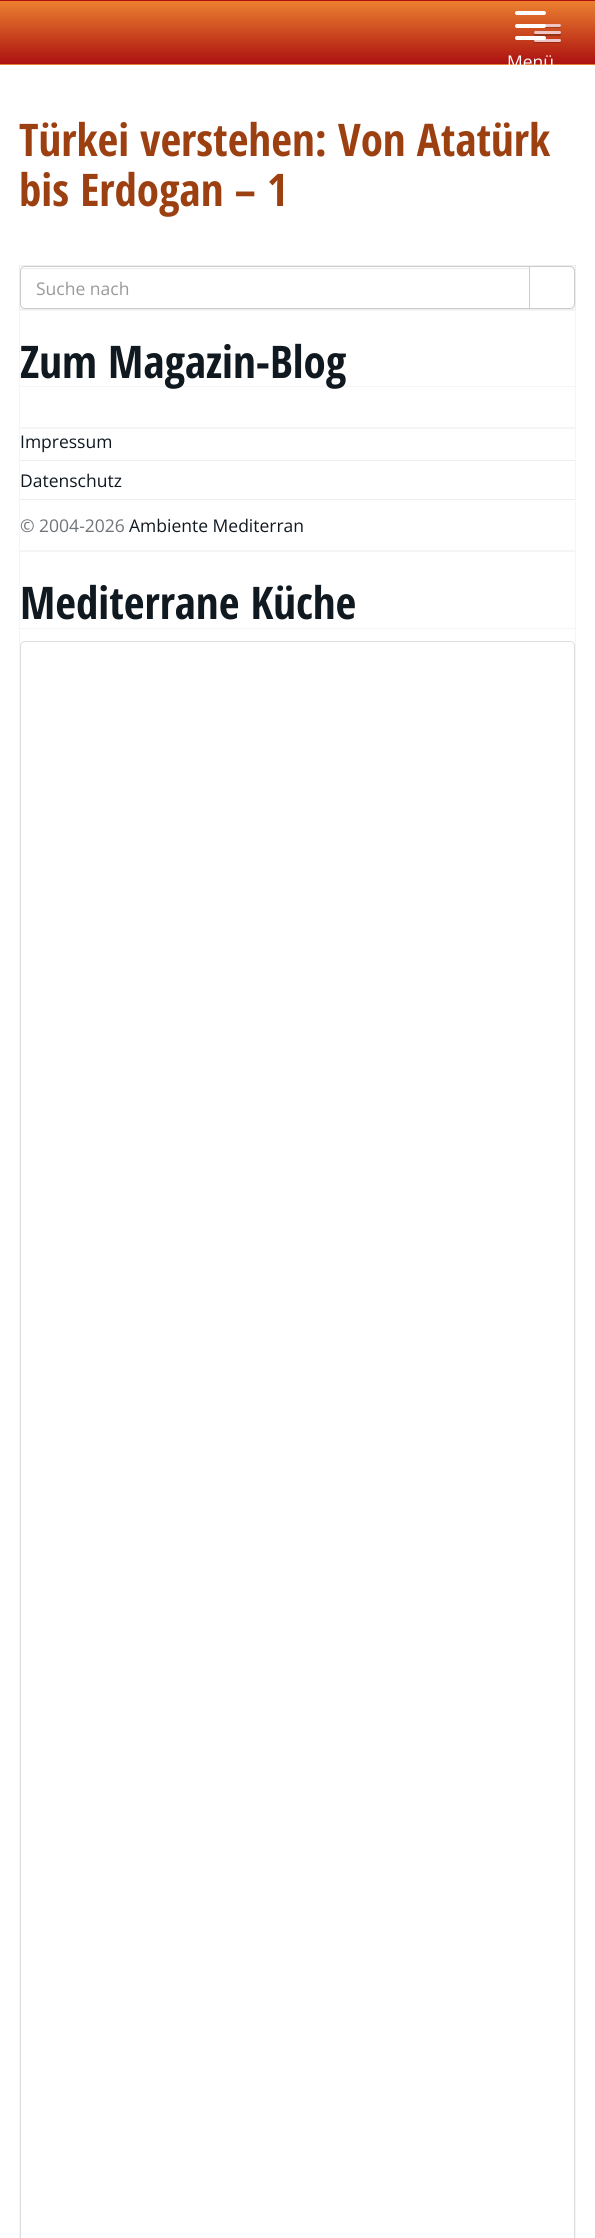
#include <cairo/cairo.h>
#include <math.h>
#include <stddef.h>


static void rounded_rect(cairo_t *cr, double x, double y, double w, double h, double r) {
  cairo_new_sub_path(cr);
  cairo_arc(cr, x + w - r, y + h - r, r, 0, M_PI / 2);
  cairo_arc(cr, x + r, y + h - r, r, M_PI / 2, M_PI);
  cairo_arc(cr, x + r, y + r, r, M_PI, 1.5 * M_PI);
  cairo_arc(cr, x + w - r, y + r, r, 1.5 * M_PI, 2 * M_PI);
  cairo_close_path(cr);
}

static void draw(cairo_t *cr) {
  cairo_pattern_t *gradient;
  cairo_set_source_rgb(cr, 1, 1, 1);
  cairo_paint(cr);
  gradient = cairo_pattern_create_linear(298, -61, 298, 1.3);
  cairo_pattern_add_color_stop_rgba(gradient, 0, 235 / 255.0, 128 / 255.0, 47 / 255.0, 1);
  cairo_pattern_add_color_stop_rgba(gradient, 1, 172 / 255.0, 17 / 255.0, 17 / 255.0, 1);
  cairo_set_source(cr, gradient);
  cairo_pattern_destroy(gradient);
  cairo_rectangle(cr, 0, 0, 595, 1);
  cairo_fill(cr);
  gradient = cairo_pattern_create_linear(298, 1.2, 298, 64);
  cairo_pattern_add_color_stop_rgba(gradient, 0, 235 / 255.0, 128 / 255.0, 47 / 255.0, 1);
  cairo_pattern_add_color_stop_rgba(gradient, 1, 172 / 255.0, 17 / 255.0, 17 / 255.0, 1);
  cairo_set_source(cr, gradient);
  cairo_pattern_destroy(gradient);
  cairo_rectangle(cr, 0, 1, 595, 63);
  cairo_fill(cr);
  gradient = cairo_pattern_create_linear(298, 64, 298, 126);
  cairo_pattern_add_color_stop_rgba(gradient, 0, 235 / 255.0, 128 / 255.0, 47 / 255.0, 1);
  cairo_pattern_add_color_stop_rgba(gradient, 1, 172 / 255.0, 17 / 255.0, 17 / 255.0, 1);
  cairo_set_source(cr, gradient);
  cairo_pattern_destroy(gradient);
  cairo_rectangle(cr, 0, 64, 595, 1);
  cairo_fill(cr);
  cairo_set_source_rgb(cr, 157 / 255.0, 62 / 255.0, 26 / 255.0);
  cairo_new_path(cr);
  cairo_move_to(cr, 534, 26);
  cairo_curve_to(cr, 533, 29, 539, 28, 539.5, 28);
  cairo_line_to(cr, 555.5, 28);
  cairo_curve_to(cr, 556, 28, 562, 29, 561, 26);
  cairo_curve_to(cr, 560, 26.5, 535, 26.5, 534, 26);
  cairo_close_path(cr);
  cairo_fill(cr);
  cairo_set_source_rgb(cr, 239 / 255.0, 196 / 255.0, 196 / 255.0);
  rounded_rect(cr, 534, 24, 27, 3, 1.5);
  cairo_fill(cr);
  cairo_set_source_rgb(cr, 151 / 255.0, 51 / 255.0, 23 / 255.0);
  cairo_new_path(cr);
  cairo_move_to(cr, 534.5, 33.5);
  cairo_line_to(cr, 534, 35);
  cairo_curve_to(cr, 534.5, 37, 539, 36, 539.5, 36);
  cairo_line_to(cr, 555.5, 36);
  cairo_curve_to(cr, 556, 36, 560.5, 37, 561, 35);
  cairo_line_to(cr, 560.5, 33.5);
  cairo_close_path(cr);
  cairo_fill(cr);
  cairo_set_source_rgb(cr, 239 / 255.0, 196 / 255.0, 196 / 255.0);
  rounded_rect(cr, 534, 31, 27, 3, 1.5);
  cairo_fill(cr);
  cairo_set_source_rgb(cr, 146 / 255.0, 42 / 255.0, 21 / 255.0);
  cairo_new_path(cr);
  cairo_move_to(cr, 534, 41);
  cairo_curve_to(cr, 533, 44, 539, 43, 539.5, 43);
  cairo_line_to(cr, 555.5, 43);
  cairo_curve_to(cr, 556, 43, 562, 44, 561, 41);
  cairo_curve_to(cr, 560, 41.5, 535, 41.5, 534, 41);
  cairo_close_path(cr);
  cairo_fill(cr);
  cairo_set_source_rgb(cr, 239 / 255.0, 196 / 255.0, 196 / 255.0);
  rounded_rect(cr, 534, 39, 27, 3, 1.5);
  cairo_fill(cr);
  cairo_set_source_rgb(cr, 1, 1, 1);
  rounded_rect(cr, 515, 24, 31, 4, 2);
  cairo_fill(cr);
  rounded_rect(cr, 515, 11, 31, 4, 2);
  cairo_fill(cr);
  rounded_rect(cr, 515, 36, 31, 4, 2);
  cairo_fill(cr);
  cairo_set_source_rgb(cr, 250 / 255.0, 250 / 255.0, 250 / 255.0);
  cairo_rectangle(cr, 19.5, 265.5, 556, 44);
  cairo_fill_preserve(cr);
  cairo_set_source_rgb(cr, 238 / 255.0, 238 / 255.0, 238 / 255.0);
  cairo_set_line_width(cr, 1);
  cairo_stroke(cr);
  cairo_set_source_rgb(cr, 1, 1, 1);
  cairo_new_path(cr);
  cairo_move_to(cr, 25, 266);
  cairo_line_to(cr, 530, 266);
  cairo_line_to(cr, 530, 309);
  cairo_line_to(cr, 25, 309);
  cairo_curve_to(cr, 22, 309, 20, 307, 20, 304);
  cairo_line_to(cr, 20, 271);
  cairo_curve_to(cr, 20, 268, 22, 266, 25, 266);
  cairo_close_path(cr);
  cairo_fill(cr);
  cairo_set_source_rgb(cr, 236 / 255.0, 236 / 255.0, 236 / 255.0);
  cairo_new_path(cr);
  cairo_move_to(cr, 25, 269);
  cairo_line_to(cr, 529, 269);
  cairo_line_to(cr, 529, 268);
  cairo_line_to(cr, 25, 268);
  cairo_curve_to(cr, 23, 268, 21, 270, 21, 272);
  cairo_curve_to(cr, 21, 270, 23, 269, 25, 269);
  cairo_close_path(cr);
  cairo_fill(cr);
  cairo_new_path(cr);
  cairo_move_to(cr, 25, 266.5);
  cairo_line_to(cr, 529.5, 266.5);
  cairo_line_to(cr, 529.5, 308.5);
  cairo_line_to(cr, 25, 308.5);
  cairo_curve_to(cr, 22.5, 308.5, 20.5, 306.5, 20.5, 304);
  cairo_line_to(cr, 20.5, 271);
  cairo_curve_to(cr, 20.5, 268.5, 22.5, 266.5, 25, 266.5);
  cairo_close_path(cr);
  cairo_set_source_rgb(cr, 204 / 255.0, 204 / 255.0, 204 / 255.0);
  cairo_stroke(cr);
  cairo_set_source_rgb(cr, 1, 1, 1);
  cairo_new_path(cr);
  cairo_move_to(cr, 529.5, 266.5);
  cairo_line_to(cr, 570, 266.5);
  cairo_curve_to(cr, 572.5, 266.5, 574.5, 268.5, 574.5, 271);
  cairo_line_to(cr, 574.5, 304);
  cairo_curve_to(cr, 574.5, 306.5, 572.5, 308.5, 570, 308.5);
  cairo_line_to(cr, 529.5, 308.5);
  cairo_close_path(cr);
  cairo_fill_preserve(cr);
  cairo_set_source_rgb(cr, 204 / 255.0, 204 / 255.0, 204 / 255.0);
  cairo_stroke(cr);
  cairo_rectangle(cr, 19.5, 310.5, 556, 117);
  cairo_set_source_rgb(cr, 245 / 255.0, 245 / 255.0, 245 / 255.0);
  cairo_stroke(cr);
  cairo_rectangle(cr, 20, 386, 555, 1);
  cairo_fill(cr);
  cairo_rectangle(cr, 19.5, 428.5, 556, 122);
  cairo_stroke(cr);
  cairo_set_source_rgb(cr, 238 / 255.0, 238 / 255.0, 238 / 255.0);
  cairo_rectangle(cr, 20, 460, 555, 1);
  cairo_fill(cr);
  cairo_rectangle(cr, 20, 499, 555, 1);
  cairo_fill(cr);
  cairo_rectangle(cr, 19.5, 551.5, 556, 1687);
  cairo_set_source_rgb(cr, 245 / 255.0, 245 / 255.0, 245 / 255.0);
  cairo_stroke(cr);
  cairo_rectangle(cr, 20, 628, 555, 1);
  cairo_fill(cr);
  rounded_rect(cr, 20.5, 641.5, 554, 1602, 4.5);
  cairo_set_source_rgb(cr, 221 / 255.0, 221 / 255.0, 221 / 255.0);
  cairo_stroke(cr);
  cairo_select_font_face(cr, "Open Sans", CAIRO_FONT_SLANT_NORMAL, CAIRO_FONT_WEIGHT_NORMAL);
  cairo_set_font_size(cr, 17.5);
  cairo_set_source_rgb(cr, 1, 1, 1);
  cairo_move_to(cr, 507, 68);
  cairo_show_text(cr, "Menü");
  cairo_select_font_face(cr, "Open Sans Condensed", CAIRO_FONT_SLANT_NORMAL, CAIRO_FONT_WEIGHT_BOLD);
  cairo_set_font_size(cr, 45);
  cairo_set_source_rgb(cr, 156 / 255.0, 63 / 255.0, 17 / 255.0);
  cairo_move_to(cr, 19, 156);
  cairo_show_text(cr, "Türkei verstehen: Von Atatürk");
  cairo_move_to(cr, 19, 206);
  cairo_show_text(cr, "bis Erdogan – 1");
  cairo_select_font_face(cr, "Open Sans", CAIRO_FONT_SLANT_NORMAL, CAIRO_FONT_WEIGHT_NORMAL);
  cairo_set_font_size(cr, 17.5);
  cairo_set_source_rgb(cr, 153 / 255.0, 153 / 255.0, 153 / 255.0);
  cairo_move_to(cr, 36, 295);
  cairo_show_text(cr, "Suche nach");
  cairo_select_font_face(cr, "Open Sans Condensed", CAIRO_FONT_SLANT_NORMAL, CAIRO_FONT_WEIGHT_BOLD);
  cairo_set_font_size(cr, 45);
  cairo_set_source_rgb(cr, 16 / 255.0, 24 / 255.0, 32 / 255.0);
  cairo_move_to(cr, 20, 378);
  cairo_show_text(cr, "Zum Magazin-Blog");
  cairo_select_font_face(cr, "Open Sans", CAIRO_FONT_SLANT_NORMAL, CAIRO_FONT_WEIGHT_NORMAL);
  cairo_set_font_size(cr, 17.5);
  cairo_move_to(cr, 20, 448);
  cairo_show_text(cr, "Impressum");
  cairo_move_to(cr, 20, 487);
  cairo_show_text(cr, "Datenschutz");
  cairo_set_source_rgb(cr, 111 / 255.0, 116 / 255.0, 121 / 255.0);
  cairo_move_to(cr, 20, 532);
  cairo_show_text(cr, "© 2004-2026");
  cairo_set_source_rgb(cr, 16 / 255.0, 24 / 255.0, 32 / 255.0);
  cairo_move_to(cr, 129, 532);
  cairo_show_text(cr, "Ambiente Mediterran");
  cairo_select_font_face(cr, "Open Sans Condensed", CAIRO_FONT_SLANT_NORMAL, CAIRO_FONT_WEIGHT_BOLD);
  cairo_set_font_size(cr, 45);
  cairo_move_to(cr, 20, 619);
  cairo_show_text(cr, "Mediterrane Küche");
}

int main(void) {
  cairo_surface_t *surface = cairo_image_surface_create(CAIRO_FORMAT_RGB24, 595, 2238);
  cairo_t *cr = cairo_create(surface);
  cairo_font_options_t *options = cairo_font_options_create();
  cairo_font_options_set_hint_metrics(options, CAIRO_HINT_METRICS_OFF);
  cairo_font_options_set_hint_style(options, CAIRO_HINT_STYLE_NONE);
  cairo_set_font_options(cr, options);
  cairo_set_miter_limit(cr, 4);
  draw(cr);
  cairo_surface_write_to_png(surface, "out.png");
  cairo_font_options_destroy(options);
  cairo_destroy(cr);
  cairo_surface_destroy(surface);
  return 0;
}
